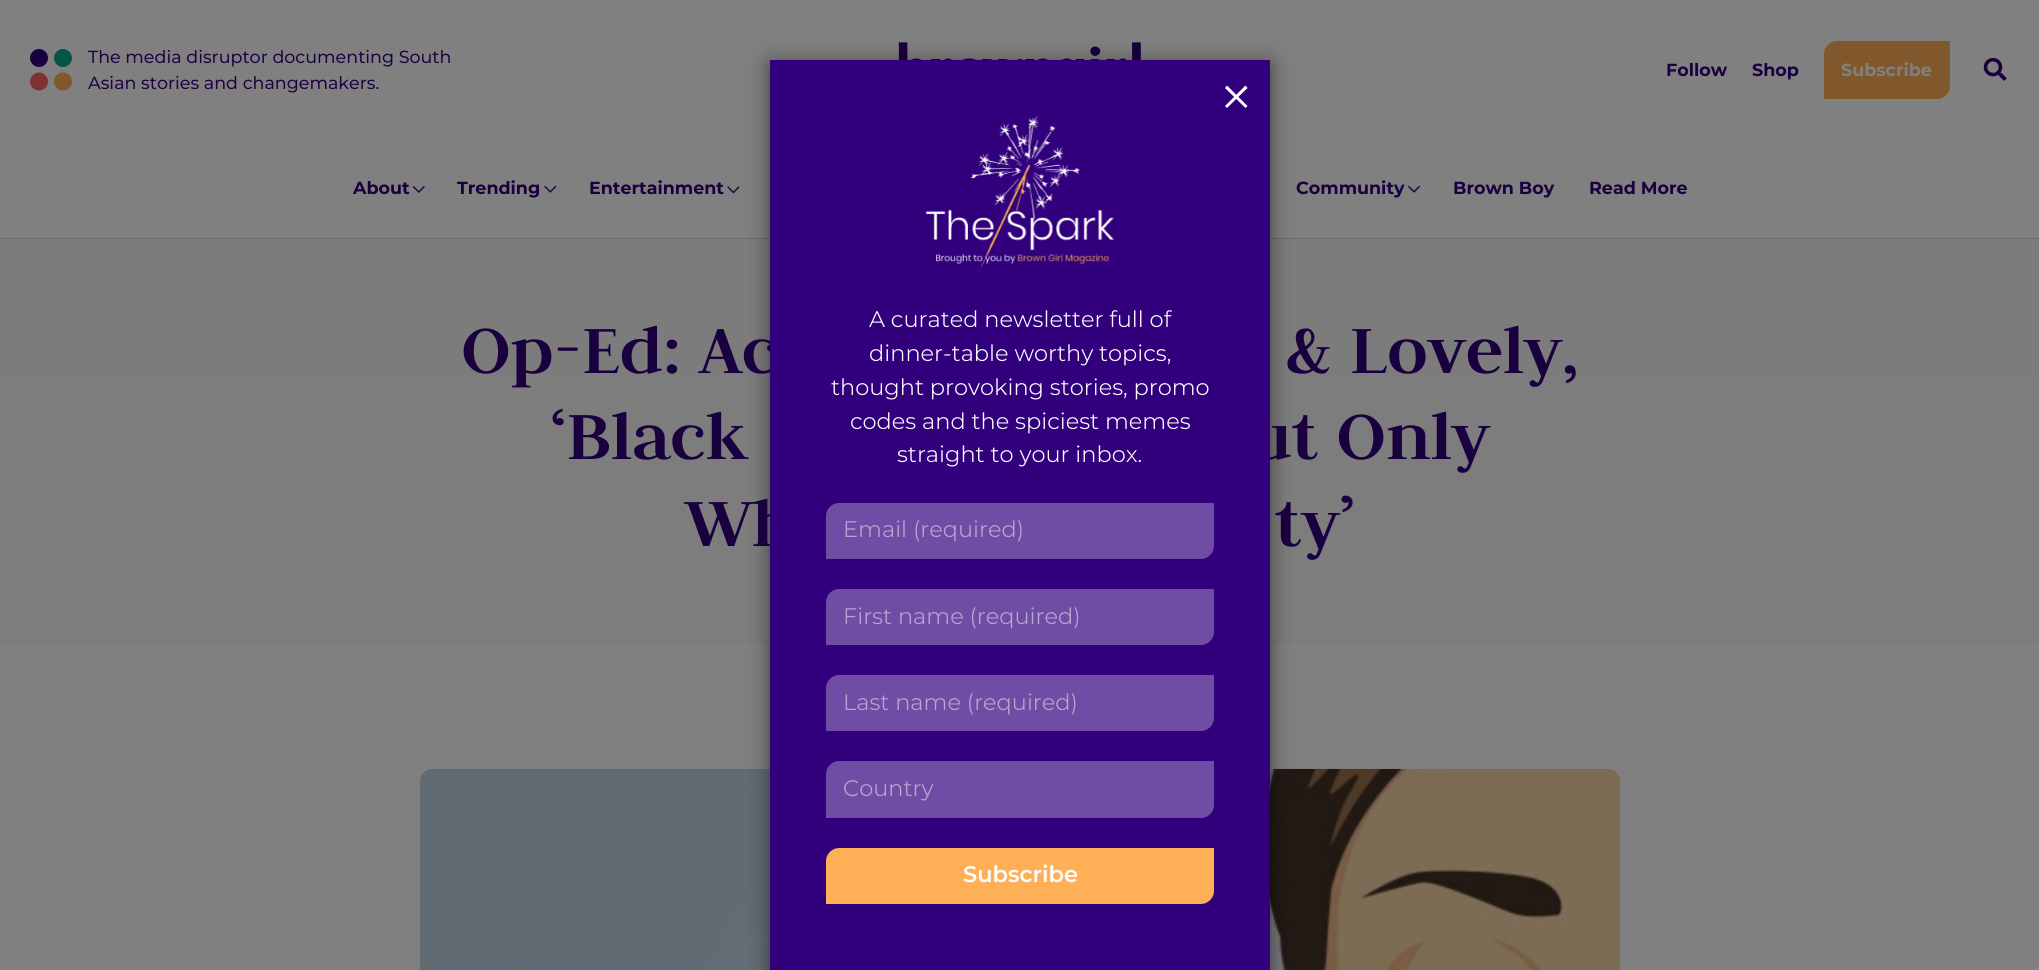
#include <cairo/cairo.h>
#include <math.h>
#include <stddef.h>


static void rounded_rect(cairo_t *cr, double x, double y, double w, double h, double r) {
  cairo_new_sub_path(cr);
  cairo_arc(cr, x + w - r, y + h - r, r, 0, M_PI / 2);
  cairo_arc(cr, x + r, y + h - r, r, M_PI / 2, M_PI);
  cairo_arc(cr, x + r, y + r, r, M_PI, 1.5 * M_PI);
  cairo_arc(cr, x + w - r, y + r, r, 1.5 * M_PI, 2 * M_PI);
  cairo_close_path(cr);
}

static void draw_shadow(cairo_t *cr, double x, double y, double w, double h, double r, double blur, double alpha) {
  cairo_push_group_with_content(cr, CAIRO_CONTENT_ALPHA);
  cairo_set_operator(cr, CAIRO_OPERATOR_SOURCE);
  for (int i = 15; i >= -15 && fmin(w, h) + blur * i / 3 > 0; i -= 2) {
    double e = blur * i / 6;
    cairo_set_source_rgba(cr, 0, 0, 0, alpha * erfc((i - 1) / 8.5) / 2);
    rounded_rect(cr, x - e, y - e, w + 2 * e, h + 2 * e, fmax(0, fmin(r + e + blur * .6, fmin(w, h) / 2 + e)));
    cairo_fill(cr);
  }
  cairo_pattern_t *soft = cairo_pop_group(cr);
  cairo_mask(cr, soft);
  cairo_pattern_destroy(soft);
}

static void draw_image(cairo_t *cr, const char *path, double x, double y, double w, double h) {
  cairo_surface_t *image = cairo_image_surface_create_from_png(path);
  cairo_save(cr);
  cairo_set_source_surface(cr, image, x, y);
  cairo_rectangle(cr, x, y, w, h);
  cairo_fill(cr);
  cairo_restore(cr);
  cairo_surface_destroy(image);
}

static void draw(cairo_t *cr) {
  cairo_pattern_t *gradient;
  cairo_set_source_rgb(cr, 128 / 255.0, 128 / 255.0, 128 / 255.0);
  cairo_paint(cr);
  cairo_set_source_rgb(cr, 111 / 255.0, 111 / 255.0, 111 / 255.0);
  cairo_rectangle(cr, 0, 238, 2039, 1);
  cairo_fill(cr);
  cairo_set_source_rgb(cr, 25 / 255.0, 0, 63 / 255.0);
  cairo_arc(cr, 39, 58, 9, 0, 2 * M_PI);
  cairo_fill(cr);
  cairo_set_source_rgb(cr, 5 / 255.0, 85 / 255.0, 68 / 255.0);
  cairo_arc(cr, 63, 58, 9, 0, 2 * M_PI);
  cairo_fill(cr);
  cairo_set_source_rgb(cr, 128 / 255.0, 88 / 255.0, 43 / 255.0);
  cairo_arc(cr, 63, 81.5, 9, 0, 2 * M_PI);
  cairo_fill(cr);
  cairo_set_source_rgb(cr, 128 / 255.0, 50 / 255.0, 50 / 255.0);
  cairo_arc(cr, 39, 81.5, 9, 0, 2 * M_PI);
  cairo_fill(cr);
  draw_image(cr, "images/1.png", 898, 42, 243, 18);
  cairo_set_source_rgb(cr, 128 / 255.0, 88 / 255.0, 43 / 255.0);
  cairo_new_path(cr);
  cairo_move_to(cr, 1837, 41);
  cairo_line_to(cr, 1950, 41);
  cairo_line_to(cr, 1950, 86);
  cairo_curve_to(cr, 1950, 93, 1944, 99, 1937, 99);
  cairo_line_to(cr, 1824, 99);
  cairo_line_to(cr, 1824, 54);
  cairo_curve_to(cr, 1824, 47, 1830, 41, 1837, 41);
  cairo_close_path(cr);
  cairo_fill(cr);
  draw_image(cr, "images/2.png", 1983, 57, 24, 24);
  draw_image(cr, "images/3.png", 412, 186, 13, 7);
  draw_image(cr, "images/4.png", 544, 185, 13, 8);
  draw_image(cr, "images/5.png", 727, 186, 13, 8);
  draw_image(cr, "images/6.png", 1408, 185, 13, 8);
  gradient = cairo_pattern_create_linear(1020, 239, 1020, 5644);
  cairo_pattern_add_color_stop_rgba(gradient, 0, 124 / 255.0, 124 / 255.0, 124 / 255.0, 1);
  cairo_pattern_add_color_stop_rgba(gradient, 0.2, 128 / 255.0, 128 / 255.0, 128 / 255.0, 1);
  cairo_pattern_add_color_stop_rgba(gradient, 1, 128 / 255.0, 128 / 255.0, 128 / 255.0, 1);
  cairo_set_source(cr, gradient);
  cairo_pattern_destroy(gradient);
  cairo_rectangle(cr, 0, 239, 2039, 405);
  cairo_fill(cr);
  draw_image(cr, "images/8.png", 420, 768, 1200, 202);
  cairo_set_source_rgb(cr, 0, 0, 0);
  draw_shadow(cr, 770, 64, 500, 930, 0, 11, 0.5);
  cairo_select_font_face(cr, "Montserrat", CAIRO_FONT_SLANT_NORMAL, CAIRO_FONT_WEIGHT_NORMAL);
  cairo_set_font_size(cr, 17.5);
  cairo_set_source_rgb(cr, 25 / 255.0, 0, 63 / 255.0);
  cairo_move_to(cr, 88, 63);
  cairo_show_text(cr, "The media disruptor documenting South");
  cairo_move_to(cr, 88, 89);
  cairo_show_text(cr, "Asian stories and changemakers.");
  cairo_select_font_face(cr, "Montserrat", CAIRO_FONT_SLANT_NORMAL, CAIRO_FONT_WEIGHT_BOLD);
  cairo_move_to(cr, 1666, 76);
  cairo_show_text(cr, "Follow");
  cairo_move_to(cr, 1752, 76);
  cairo_show_text(cr, "Shop");
  cairo_set_source_rgb(cr, 128 / 255.0, 128 / 255.0, 128 / 255.0);
  cairo_move_to(cr, 1841, 76);
  cairo_show_text(cr, "Subscribe");
  cairo_set_source_rgb(cr, 25 / 255.0, 0, 63 / 255.0);
  cairo_move_to(cr, 353, 194);
  cairo_show_text(cr, "About");
  cairo_move_to(cr, 457, 194);
  cairo_show_text(cr, "Trending");
  cairo_move_to(cr, 589, 194);
  cairo_show_text(cr, "Entertainment");
  cairo_move_to(cr, 1296, 194);
  cairo_show_text(cr, "Community");
  cairo_move_to(cr, 1453, 194);
  cairo_show_text(cr, "Brown Boy");
  cairo_move_to(cr, 1589, 194);
  cairo_show_text(cr, "Read More");
  cairo_select_font_face(cr, "Judson", CAIRO_FONT_SLANT_NORMAL, CAIRO_FONT_WEIGHT_BOLD);
  cairo_set_font_size(cr, 75);
  cairo_move_to(cr, 461, 373);
  cairo_show_text(cr, "Op-Ed: Ac");
  cairo_move_to(cr, 1286, 373);
  cairo_show_text(cr, "& Lovely,");
  cairo_move_to(cr, 550, 459);
  cairo_show_text(cr, "‘Black");
  cairo_move_to(cr, 1249, 459);
  cairo_show_text(cr, "ut Only");
  cairo_move_to(cr, 685, 546);
  cairo_show_text(cr, "Wh");
  cairo_set_source_rgb(cr, 50 / 255.0, 0, 125 / 255.0);
  cairo_rectangle(cr, 770, 60, 500, 910);
  cairo_fill(cr);
  cairo_set_source_rgb(cr, 1, 1, 1);
  cairo_new_path(cr);
  cairo_move_to(cr, 1227, 85.5);
  cairo_line_to(cr, 1247.5, 106);
  cairo_line_to(cr, 1245.5, 108);
  cairo_line_to(cr, 1225, 88);
  cairo_close_path(cr);
  cairo_move_to(cr, 1245.5, 85.5);
  cairo_line_to(cr, 1247.5, 88);
  cairo_line_to(cr, 1227, 108);
  cairo_line_to(cr, 1225, 106);
  cairo_close_path(cr);
  cairo_fill(cr);
  cairo_set_source_rgb(cr, 1, 175 / 255.0, 85 / 255.0);
  cairo_new_path(cr);
  cairo_move_to(cr, 839, 848);
  cairo_line_to(cr, 1214, 848);
  cairo_line_to(cr, 1214, 891);
  cairo_curve_to(cr, 1214, 898, 1208, 904, 1201, 904);
  cairo_line_to(cr, 826, 904);
  cairo_line_to(cr, 826, 861);
  cairo_curve_to(cr, 826, 854, 832, 848, 839, 848);
  cairo_close_path(cr);
  cairo_fill(cr);
  cairo_select_font_face(cr, "Montserrat SemiBold", CAIRO_FONT_SLANT_NORMAL, CAIRO_FONT_WEIGHT_NORMAL);
  cairo_set_font_size(cr, 22.5);
  cairo_set_source_rgb(cr, 1, 1, 1);
  cairo_move_to(cr, 963, 882);
  cairo_show_text(cr, "Subscribe");
  cairo_set_source_rgb(cr, 112 / 255.0, 77 / 255.0, 164 / 255.0);
  cairo_new_path(cr);
  cairo_move_to(cr, 839, 761);
  cairo_line_to(cr, 1214, 761);
  cairo_line_to(cr, 1214, 805);
  cairo_curve_to(cr, 1214, 812, 1208, 818, 1201, 818);
  cairo_line_to(cr, 826, 818);
  cairo_line_to(cr, 826, 774);
  cairo_curve_to(cr, 826, 767, 832, 761, 839, 761);
  cairo_close_path(cr);
  cairo_fill(cr);
  cairo_select_font_face(cr, "Montserrat Light", CAIRO_FONT_SLANT_NORMAL, CAIRO_FONT_WEIGHT_NORMAL);
  cairo_set_source_rgb(cr, 184 / 255.0, 166 / 255.0, 210 / 255.0);
  cairo_move_to(cr, 843, 796);
  cairo_show_text(cr, "Country");
  cairo_set_source_rgb(cr, 112 / 255.0, 77 / 255.0, 164 / 255.0);
  cairo_new_path(cr);
  cairo_move_to(cr, 839, 675);
  cairo_line_to(cr, 1214, 675);
  cairo_line_to(cr, 1214, 718);
  cairo_curve_to(cr, 1214, 725, 1208, 731, 1201, 731);
  cairo_line_to(cr, 826, 731);
  cairo_line_to(cr, 826, 688);
  cairo_curve_to(cr, 826, 681, 832, 675, 839, 675);
  cairo_close_path(cr);
  cairo_fill(cr);
  cairo_set_source_rgb(cr, 184 / 255.0, 166 / 255.0, 210 / 255.0);
  cairo_move_to(cr, 843, 710);
  cairo_show_text(cr, "Last name (required)");
  cairo_set_source_rgb(cr, 112 / 255.0, 77 / 255.0, 164 / 255.0);
  cairo_new_path(cr);
  cairo_move_to(cr, 839, 589);
  cairo_line_to(cr, 1214, 589);
  cairo_line_to(cr, 1214, 632);
  cairo_curve_to(cr, 1214, 639, 1208, 645, 1201, 645);
  cairo_line_to(cr, 826, 645);
  cairo_line_to(cr, 826, 602);
  cairo_curve_to(cr, 826, 595, 832, 589, 839, 589);
  cairo_close_path(cr);
  cairo_fill(cr);
  cairo_set_source_rgb(cr, 184 / 255.0, 166 / 255.0, 210 / 255.0);
  cairo_move_to(cr, 843, 624);
  cairo_show_text(cr, "First name (required)");
  cairo_set_source_rgb(cr, 112 / 255.0, 77 / 255.0, 164 / 255.0);
  cairo_new_path(cr);
  cairo_move_to(cr, 839, 503);
  cairo_line_to(cr, 1214, 503);
  cairo_line_to(cr, 1214, 546);
  cairo_curve_to(cr, 1214, 553, 1208, 559, 1201, 559);
  cairo_line_to(cr, 826, 559);
  cairo_line_to(cr, 826, 516);
  cairo_curve_to(cr, 826, 509, 832, 503, 839, 503);
  cairo_close_path(cr);
  cairo_fill(cr);
  cairo_set_source_rgb(cr, 184 / 255.0, 166 / 255.0, 210 / 255.0);
  cairo_move_to(cr, 843, 537);
  cairo_show_text(cr, "Email (required)");
  cairo_set_source_rgb(cr, 1, 1, 1);
  cairo_move_to(cr, 897, 462);
  cairo_show_text(cr, "straight to your inbox.");
  cairo_move_to(cr, 850, 429);
  cairo_show_text(cr, "codes and the spiciest memes");
  cairo_move_to(cr, 831, 395);
  cairo_show_text(cr, "thought provoking stories, promo");
  cairo_move_to(cr, 869, 361);
  cairo_show_text(cr, "dinner-table worthy topics,");
  cairo_move_to(cr, 869, 327);
  cairo_show_text(cr, "A curated newsletter full of");
  draw_image(cr, "images/7.png", 926, 116, 188, 157);
  cairo_select_font_face(cr, "Judson", CAIRO_FONT_SLANT_NORMAL, CAIRO_FONT_WEIGHT_BOLD);
  cairo_set_font_size(cr, 75);
  cairo_set_source_rgb(cr, 25 / 255.0, 0, 63 / 255.0);
  cairo_move_to(cr, 1275, 546);
  cairo_show_text(cr, "ty’");
}

int main(void) {
  cairo_surface_t *surface = cairo_image_surface_create(CAIRO_FORMAT_RGB24, 2039, 970);
  cairo_t *cr = cairo_create(surface);
  cairo_font_options_t *options = cairo_font_options_create();
  cairo_font_options_set_hint_metrics(options, CAIRO_HINT_METRICS_OFF);
  cairo_font_options_set_hint_style(options, CAIRO_HINT_STYLE_NONE);
  cairo_set_font_options(cr, options);
  cairo_set_miter_limit(cr, 4);
  draw(cr);
  cairo_surface_write_to_png(surface, "out.png");
  cairo_font_options_destroy(options);
  cairo_destroy(cr);
  cairo_surface_destroy(surface);
  return 0;
}
